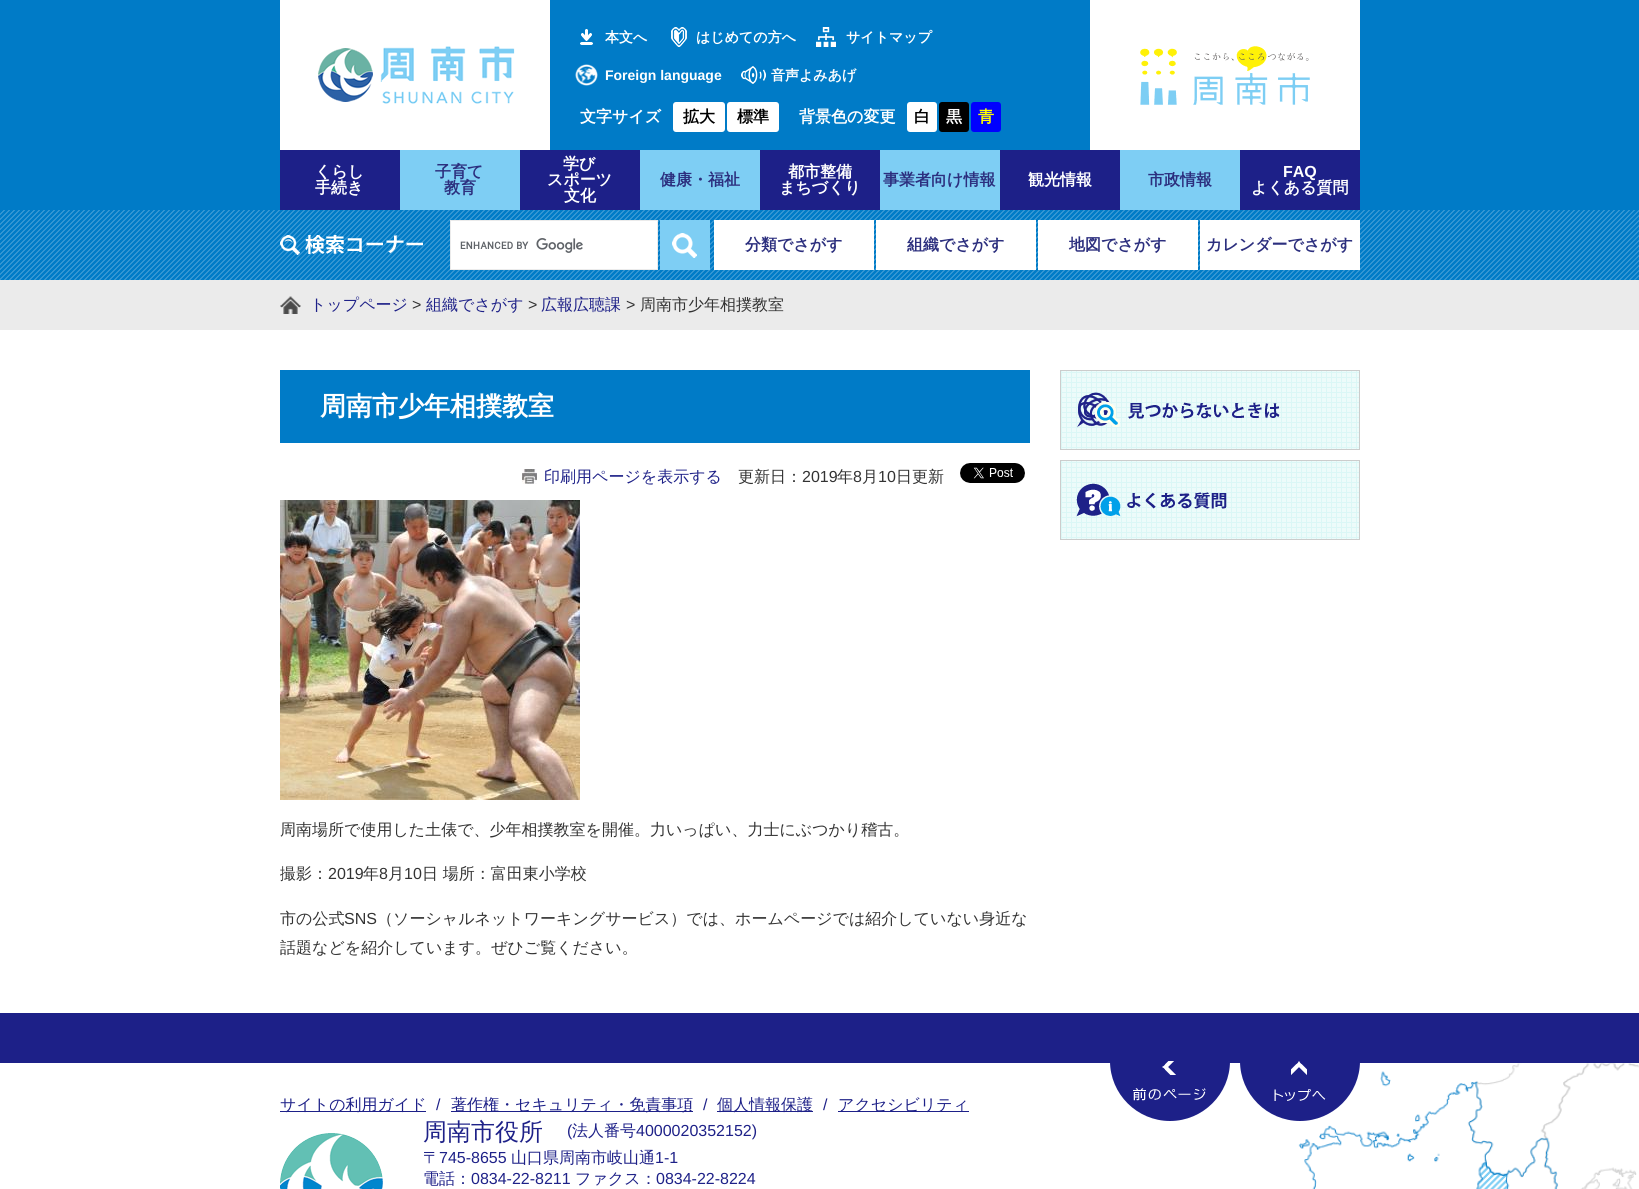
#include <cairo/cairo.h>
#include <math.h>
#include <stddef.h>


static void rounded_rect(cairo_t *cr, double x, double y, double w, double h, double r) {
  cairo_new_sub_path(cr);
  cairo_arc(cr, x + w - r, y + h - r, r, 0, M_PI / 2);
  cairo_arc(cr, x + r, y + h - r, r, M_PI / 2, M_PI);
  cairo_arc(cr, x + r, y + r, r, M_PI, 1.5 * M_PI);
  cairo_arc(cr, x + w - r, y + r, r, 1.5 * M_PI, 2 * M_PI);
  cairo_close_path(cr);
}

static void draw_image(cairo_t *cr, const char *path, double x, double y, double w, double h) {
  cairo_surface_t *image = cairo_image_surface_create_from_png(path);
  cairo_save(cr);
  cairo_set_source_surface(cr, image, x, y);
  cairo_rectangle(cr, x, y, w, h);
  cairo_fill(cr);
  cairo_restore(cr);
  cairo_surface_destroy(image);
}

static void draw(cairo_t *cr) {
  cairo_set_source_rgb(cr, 1, 1, 1);
  cairo_paint(cr);
  cairo_set_source_rgb(cr, 0, 123 / 255.0, 199 / 255.0);
  cairo_rectangle(cr, 0, 0, 1639, 280);
  cairo_fill(cr);
  cairo_set_source_rgb(cr, 1, 1, 1);
  cairo_rectangle(cr, 280, 0, 270, 150);
  cairo_fill(cr);
  draw_image(cr, "images/1.png", 318, 46, 197, 58);
  draw_image(cr, "images/2.png", 580, 29, 13, 16);
  draw_image(cr, "images/3.png", 671, 27, 16, 20);
  draw_image(cr, "images/4.png", 816, 27, 20, 20);
  draw_image(cr, "images/5.png", 575, 64, 23, 22);
  draw_image(cr, "images/6.png", 741, 66, 25, 18);
  rounded_rect(cr, 673, 102, 52, 30, 3);
  cairo_fill(cr);
  rounded_rect(cr, 727, 102, 52, 30, 3);
  cairo_fill(cr);
  rounded_rect(cr, 907, 102, 30, 30, 3);
  cairo_fill(cr);
  cairo_set_source_rgb(cr, 0, 0, 0);
  rounded_rect(cr, 939, 102, 30, 30, 3);
  cairo_fill(cr);
  cairo_set_source_rgb(cr, 0, 0, 1);
  rounded_rect(cr, 971, 102, 30, 30, 3);
  cairo_fill(cr);
  cairo_set_source_rgb(cr, 1, 1, 1);
  cairo_rectangle(cr, 1090, 0, 270, 150);
  cairo_fill(cr);
  draw_image(cr, "images/7.png", 1140, 46, 170, 59);
  cairo_set_source_rgb(cr, 29 / 255.0, 32 / 255.0, 136 / 255.0);
  cairo_rectangle(cr, 280, 150, 120, 60);
  cairo_fill(cr);
  cairo_set_source_rgb(cr, 126 / 255.0, 206 / 255.0, 244 / 255.0);
  cairo_rectangle(cr, 400, 150, 120, 60);
  cairo_fill(cr);
  cairo_set_source_rgb(cr, 29 / 255.0, 32 / 255.0, 136 / 255.0);
  cairo_rectangle(cr, 520, 150, 120, 60);
  cairo_fill(cr);
  cairo_set_source_rgb(cr, 126 / 255.0, 206 / 255.0, 244 / 255.0);
  cairo_rectangle(cr, 640, 150, 120, 60);
  cairo_fill(cr);
  cairo_set_source_rgb(cr, 29 / 255.0, 32 / 255.0, 136 / 255.0);
  cairo_rectangle(cr, 760, 150, 120, 60);
  cairo_fill(cr);
  cairo_set_source_rgb(cr, 126 / 255.0, 206 / 255.0, 244 / 255.0);
  cairo_rectangle(cr, 880, 150, 120, 60);
  cairo_fill(cr);
  cairo_set_source_rgb(cr, 29 / 255.0, 32 / 255.0, 136 / 255.0);
  cairo_rectangle(cr, 1000, 150, 120, 60);
  cairo_fill(cr);
  cairo_set_source_rgb(cr, 126 / 255.0, 206 / 255.0, 244 / 255.0);
  cairo_rectangle(cr, 1120, 150, 120, 60);
  cairo_fill(cr);
  cairo_set_source_rgb(cr, 29 / 255.0, 32 / 255.0, 136 / 255.0);
  cairo_rectangle(cr, 1240, 150, 120, 60);
  cairo_fill(cr);
  draw_image(cr, "images/8.png", 0, 210, 1639, 70);
  draw_image(cr, "images/9.png", 280, 235, 143, 20);
  cairo_set_source_rgb(cr, 1, 1, 1);
  cairo_rectangle(cr, 451, 221, 206, 48);
  cairo_fill(cr);
  draw_image(cr, "images/10.png", 460, 238, 123, 15);
  cairo_rectangle(cr, 450.5, 220.5, 207, 49);
  cairo_set_source_rgb(cr, 235 / 255.0, 235 / 255.0, 235 / 255.0);
  cairo_set_line_width(cr, 1);
  cairo_stroke(cr);
  cairo_set_source_rgb(cr, 126 / 255.0, 206 / 255.0, 244 / 255.0);
  cairo_rectangle(cr, 660, 220, 50, 50);
  cairo_fill(cr);
  draw_image(cr, "images/11.png", 672, 233, 25, 25);
  cairo_set_source_rgb(cr, 1, 1, 1);
  cairo_rectangle(cr, 714, 220, 160, 50);
  cairo_fill(cr);
  cairo_rectangle(cr, 876, 220, 160, 50);
  cairo_fill(cr);
  cairo_rectangle(cr, 1038, 220, 160, 50);
  cairo_fill(cr);
  cairo_rectangle(cr, 1200, 220, 160, 50);
  cairo_fill(cr);
  cairo_set_source_rgb(cr, 235 / 255.0, 235 / 255.0, 235 / 255.0);
  cairo_rectangle(cr, 0, 280, 1639, 50);
  cairo_fill(cr);
  draw_image(cr, "images/12.png", 280, 296, 21, 18);
  cairo_set_source_rgb(cr, 0, 123 / 255.0, 199 / 255.0);
  cairo_rectangle(cr, 280, 370, 750, 73);
  cairo_fill(cr);
  draw_image(cr, "images/13.png", 522, 469, 15, 15);
  draw_image(cr, "images/14.png", 960, 463, 65, 20);
  draw_image(cr, "images/15.png", 280, 500, 300, 300);
  draw_image(cr, "images/16.png", 1060, 370, 300, 80);
  draw_image(cr, "images/17.png", 1060, 460, 300, 80);
  cairo_set_source_rgb(cr, 29 / 255.0, 32 / 255.0, 136 / 255.0);
  cairo_rectangle(cr, 0, 1013, 1639, 50);
  cairo_fill(cr);
  cairo_new_path(cr);
  cairo_move_to(cr, 1110, 1061);
  cairo_line_to(cr, 1230, 1061);
  cairo_curve_to(cr, 1230, 1094, 1203, 1121, 1170, 1121);
  cairo_curve_to(cr, 1137, 1121, 1110, 1094, 1110, 1061);
  cairo_close_path(cr);
  cairo_fill(cr);
  draw_image(cr, "images/18.png", 1133, 1061, 73, 40);
  draw_image(cr, "images/20.png", 1298, 1063, 341, 126);
  cairo_new_path(cr);
  cairo_move_to(cr, 1240, 1061);
  cairo_line_to(cr, 1360, 1061);
  cairo_curve_to(cr, 1360, 1094, 1333, 1121, 1300, 1121);
  cairo_curve_to(cr, 1267, 1121, 1240, 1094, 1240, 1061);
  cairo_close_path(cr);
  cairo_fill(cr);
  draw_image(cr, "images/19.png", 1274, 1061, 52, 40);
  cairo_rectangle(cr, 280, 1111, 146, 1);
  cairo_fill(cr);
  cairo_rectangle(cr, 451, 1111, 242, 1);
  cairo_fill(cr);
  cairo_rectangle(cr, 717, 1111, 96, 1);
  cairo_fill(cr);
  cairo_rectangle(cr, 838, 1111, 131, 1);
  cairo_fill(cr);
  draw_image(cr, "images/21.png", 280, 1133, 103, 56);
  cairo_select_font_face(cr, "WenQuanYi Zen Hei", CAIRO_FONT_SLANT_NORMAL, CAIRO_FONT_WEIGHT_BOLD);
  cairo_set_font_size(cr, 14);
  cairo_set_source_rgb(cr, 1, 1, 1);
  cairo_move_to(cr, 605, 42);
  cairo_show_text(cr, "本文へ");
  cairo_move_to(cr, 696, 42);
  cairo_show_text(cr, "はじめての方へ");
  cairo_move_to(cr, 846, 42);
  cairo_show_text(cr, "サイトマップ");
  cairo_select_font_face(cr, "Liberation Sans", CAIRO_FONT_SLANT_NORMAL, CAIRO_FONT_WEIGHT_BOLD);
  cairo_move_to(cr, 605, 80);
  cairo_show_text(cr, "Foreign language");
  cairo_select_font_face(cr, "WenQuanYi Zen Hei", CAIRO_FONT_SLANT_NORMAL, CAIRO_FONT_WEIGHT_BOLD);
  cairo_move_to(cr, 771, 80);
  cairo_show_text(cr, "音声よみあげ");
  cairo_set_font_size(cr, 16);
  cairo_move_to(cr, 580, 122);
  cairo_show_text(cr, "文字サイズ");
  cairo_set_source_rgb(cr, 0, 0, 0);
  cairo_move_to(cr, 683, 122);
  cairo_show_text(cr, "拡大");
  cairo_move_to(cr, 737, 122);
  cairo_show_text(cr, "標準");
  cairo_set_source_rgb(cr, 1, 1, 1);
  cairo_move_to(cr, 799, 122);
  cairo_show_text(cr, "背景色の変更");
  cairo_set_source_rgb(cr, 0, 0, 0);
  cairo_move_to(cr, 914, 122);
  cairo_show_text(cr, "白");
  cairo_set_source_rgb(cr, 1, 1, 1);
  cairo_move_to(cr, 946, 122);
  cairo_show_text(cr, "黒");
  cairo_set_source_rgb(cr, 1, 1, 0);
  cairo_move_to(cr, 978, 122);
  cairo_show_text(cr, "青");
  cairo_set_source_rgb(cr, 1, 1, 1);
  cairo_move_to(cr, 315, 177);
  cairo_show_text(cr, "くらし");
  cairo_move_to(cr, 315, 193);
  cairo_show_text(cr, "手続き");
  cairo_set_source_rgb(cr, 44 / 255.0, 47 / 255.0, 126 / 255.0);
  cairo_move_to(cr, 435, 177);
  cairo_show_text(cr, "子育て");
  cairo_move_to(cr, 444, 193);
  cairo_show_text(cr, "教育");
  cairo_set_source_rgb(cr, 1, 1, 1);
  cairo_move_to(cr, 563, 169);
  cairo_show_text(cr, "学び");
  cairo_move_to(cr, 547, 185);
  cairo_show_text(cr, "スポーツ");
  cairo_move_to(cr, 564, 201);
  cairo_show_text(cr, "文化");
  cairo_set_source_rgb(cr, 44 / 255.0, 47 / 255.0, 126 / 255.0);
  cairo_move_to(cr, 660, 185);
  cairo_show_text(cr, "健康・福祉");
  cairo_set_source_rgb(cr, 1, 1, 1);
  cairo_move_to(cr, 788, 177);
  cairo_show_text(cr, "都市整備");
  cairo_move_to(cr, 779, 193);
  cairo_show_text(cr, "まちづくり");
  cairo_set_source_rgb(cr, 44 / 255.0, 47 / 255.0, 126 / 255.0);
  cairo_move_to(cr, 883, 185);
  cairo_show_text(cr, "事業者向け情報");
  cairo_set_source_rgb(cr, 1, 1, 1);
  cairo_move_to(cr, 1028, 185);
  cairo_show_text(cr, "観光情報");
  cairo_set_source_rgb(cr, 44 / 255.0, 47 / 255.0, 126 / 255.0);
  cairo_move_to(cr, 1148, 185);
  cairo_show_text(cr, "市政情報");
  cairo_select_font_face(cr, "Liberation Sans", CAIRO_FONT_SLANT_NORMAL, CAIRO_FONT_WEIGHT_BOLD);
  cairo_set_source_rgb(cr, 1, 1, 1);
  cairo_move_to(cr, 1283, 177);
  cairo_show_text(cr, "FAQ");
  cairo_select_font_face(cr, "WenQuanYi Zen Hei", CAIRO_FONT_SLANT_NORMAL, CAIRO_FONT_WEIGHT_BOLD);
  cairo_move_to(cr, 1251, 193);
  cairo_show_text(cr, "よくある質問");
  cairo_set_source_rgb(cr, 44 / 255.0, 47 / 255.0, 126 / 255.0);
  cairo_move_to(cr, 745, 250);
  cairo_show_text(cr, "分類でさがす");
  cairo_move_to(cr, 907, 250);
  cairo_show_text(cr, "組織でさがす");
  cairo_move_to(cr, 1069, 250);
  cairo_show_text(cr, "地図でさがす");
  cairo_move_to(cr, 1206, 250);
  cairo_show_text(cr, "カレンダーでさがす");
  cairo_select_font_face(cr, "WenQuanYi Zen Hei Medium", CAIRO_FONT_SLANT_NORMAL, CAIRO_FONT_WEIGHT_NORMAL);
  cairo_set_source_rgb(cr, 30 / 255.0, 33 / 255.0, 136 / 255.0);
  cairo_move_to(cr, 310, 310);
  cairo_show_text(cr, "トップページ");
  cairo_select_font_face(cr, "Liberation Sans", CAIRO_FONT_SLANT_NORMAL, CAIRO_FONT_WEIGHT_NORMAL);
  cairo_set_source_rgb(cr, 51 / 255.0, 51 / 255.0, 51 / 255.0);
  cairo_move_to(cr, 412, 310);
  cairo_show_text(cr, ">");
  cairo_select_font_face(cr, "WenQuanYi Zen Hei Medium", CAIRO_FONT_SLANT_NORMAL, CAIRO_FONT_WEIGHT_NORMAL);
  cairo_set_source_rgb(cr, 30 / 255.0, 33 / 255.0, 136 / 255.0);
  cairo_move_to(cr, 426, 310);
  cairo_show_text(cr, "組織でさがす");
  cairo_select_font_face(cr, "Liberation Sans", CAIRO_FONT_SLANT_NORMAL, CAIRO_FONT_WEIGHT_NORMAL);
  cairo_set_source_rgb(cr, 51 / 255.0, 51 / 255.0, 51 / 255.0);
  cairo_move_to(cr, 528, 310);
  cairo_show_text(cr, ">");
  cairo_select_font_face(cr, "WenQuanYi Zen Hei Medium", CAIRO_FONT_SLANT_NORMAL, CAIRO_FONT_WEIGHT_NORMAL);
  cairo_set_source_rgb(cr, 30 / 255.0, 33 / 255.0, 136 / 255.0);
  cairo_move_to(cr, 541, 310);
  cairo_show_text(cr, "広報広聴課");
  cairo_select_font_face(cr, "Liberation Sans", CAIRO_FONT_SLANT_NORMAL, CAIRO_FONT_WEIGHT_NORMAL);
  cairo_set_source_rgb(cr, 51 / 255.0, 51 / 255.0, 51 / 255.0);
  cairo_move_to(cr, 626, 310);
  cairo_show_text(cr, ">");
  cairo_select_font_face(cr, "WenQuanYi Zen Hei Medium", CAIRO_FONT_SLANT_NORMAL, CAIRO_FONT_WEIGHT_NORMAL);
  cairo_move_to(cr, 640, 310);
  cairo_show_text(cr, "周南市少年相撲教室");
  cairo_select_font_face(cr, "WenQuanYi Zen Hei", CAIRO_FONT_SLANT_NORMAL, CAIRO_FONT_WEIGHT_BOLD);
  cairo_set_font_size(cr, 26);
  cairo_set_source_rgb(cr, 1, 1, 1);
  cairo_move_to(cr, 320, 415);
  cairo_show_text(cr, "周南市少年相撲教室");
  cairo_select_font_face(cr, "WenQuanYi Zen Hei Medium", CAIRO_FONT_SLANT_NORMAL, CAIRO_FONT_WEIGHT_NORMAL);
  cairo_set_font_size(cr, 16);
  cairo_set_source_rgb(cr, 30 / 255.0, 33 / 255.0, 136 / 255.0);
  cairo_move_to(cr, 544, 482);
  cairo_show_text(cr, "印刷用ページを表示する");
  cairo_set_source_rgb(cr, 51 / 255.0, 51 / 255.0, 51 / 255.0);
  cairo_move_to(cr, 738, 482);
  cairo_show_text(cr, "更新日：");
  cairo_select_font_face(cr, "Liberation Sans", CAIRO_FONT_SLANT_NORMAL, CAIRO_FONT_WEIGHT_NORMAL);
  cairo_move_to(cr, 802, 482);
  cairo_show_text(cr, "2019");
  cairo_select_font_face(cr, "WenQuanYi Zen Hei Medium", CAIRO_FONT_SLANT_NORMAL, CAIRO_FONT_WEIGHT_NORMAL);
  cairo_move_to(cr, 837, 482);
  cairo_show_text(cr, "年");
  cairo_select_font_face(cr, "Liberation Sans", CAIRO_FONT_SLANT_NORMAL, CAIRO_FONT_WEIGHT_NORMAL);
  cairo_move_to(cr, 853, 482);
  cairo_show_text(cr, "8");
  cairo_select_font_face(cr, "WenQuanYi Zen Hei Medium", CAIRO_FONT_SLANT_NORMAL, CAIRO_FONT_WEIGHT_NORMAL);
  cairo_move_to(cr, 862, 482);
  cairo_show_text(cr, "月");
  cairo_select_font_face(cr, "Liberation Sans", CAIRO_FONT_SLANT_NORMAL, CAIRO_FONT_WEIGHT_NORMAL);
  cairo_move_to(cr, 878, 482);
  cairo_show_text(cr, "10");
  cairo_select_font_face(cr, "WenQuanYi Zen Hei Medium", CAIRO_FONT_SLANT_NORMAL, CAIRO_FONT_WEIGHT_NORMAL);
  cairo_move_to(cr, 896, 482);
  cairo_show_text(cr, "日更新");
  cairo_move_to(cr, 280, 835);
  cairo_show_text(cr, "周南場所で使用した土俵で、少年相撲教室を開催。力いっぱい、力士にぶつかり稽古。");
  cairo_move_to(cr, 280, 879);
  cairo_show_text(cr, "撮影：");
  cairo_select_font_face(cr, "Liberation Sans", CAIRO_FONT_SLANT_NORMAL, CAIRO_FONT_WEIGHT_NORMAL);
  cairo_move_to(cr, 328, 879);
  cairo_show_text(cr, "2019");
  cairo_select_font_face(cr, "WenQuanYi Zen Hei Medium", CAIRO_FONT_SLANT_NORMAL, CAIRO_FONT_WEIGHT_NORMAL);
  cairo_move_to(cr, 363, 879);
  cairo_show_text(cr, "年");
  cairo_select_font_face(cr, "Liberation Sans", CAIRO_FONT_SLANT_NORMAL, CAIRO_FONT_WEIGHT_NORMAL);
  cairo_move_to(cr, 379, 879);
  cairo_show_text(cr, "8");
  cairo_select_font_face(cr, "WenQuanYi Zen Hei Medium", CAIRO_FONT_SLANT_NORMAL, CAIRO_FONT_WEIGHT_NORMAL);
  cairo_move_to(cr, 388, 879);
  cairo_show_text(cr, "月");
  cairo_select_font_face(cr, "Liberation Sans", CAIRO_FONT_SLANT_NORMAL, CAIRO_FONT_WEIGHT_NORMAL);
  cairo_move_to(cr, 404, 879);
  cairo_show_text(cr, "10");
  cairo_select_font_face(cr, "WenQuanYi Zen Hei Medium", CAIRO_FONT_SLANT_NORMAL, CAIRO_FONT_WEIGHT_NORMAL);
  cairo_move_to(cr, 422, 879);
  cairo_show_text(cr, "日 場所：富田東小学校");
  cairo_move_to(cr, 280, 924);
  cairo_show_text(cr, "市の公式");
  cairo_select_font_face(cr, "Liberation Sans", CAIRO_FONT_SLANT_NORMAL, CAIRO_FONT_WEIGHT_NORMAL);
  cairo_move_to(cr, 344, 924);
  cairo_show_text(cr, "SNS");
  cairo_select_font_face(cr, "WenQuanYi Zen Hei Medium", CAIRO_FONT_SLANT_NORMAL, CAIRO_FONT_WEIGHT_NORMAL);
  cairo_move_to(cr, 377, 924);
  cairo_show_text(cr, "（ソーシャルネットワーキングサービス）では、ホームページでは紹介していない身近な");
  cairo_move_to(cr, 280, 953);
  cairo_show_text(cr, "話題などを紹介しています。ぜひご覧ください。");
  cairo_set_source_rgb(cr, 30 / 255.0, 33 / 255.0, 136 / 255.0);
  cairo_move_to(cr, 280, 1110);
  cairo_show_text(cr, "サイトの利用ガイド");
  cairo_select_font_face(cr, "Liberation Sans", CAIRO_FONT_SLANT_NORMAL, CAIRO_FONT_WEIGHT_NORMAL);
  cairo_move_to(cr, 436, 1110);
  cairo_show_text(cr, "/");
  cairo_select_font_face(cr, "WenQuanYi Zen Hei Medium", CAIRO_FONT_SLANT_NORMAL, CAIRO_FONT_WEIGHT_NORMAL);
  cairo_move_to(cr, 451, 1110);
  cairo_show_text(cr, "著作権・セキュリティ・免責事項");
  cairo_select_font_face(cr, "Liberation Sans", CAIRO_FONT_SLANT_NORMAL, CAIRO_FONT_WEIGHT_NORMAL);
  cairo_move_to(cr, 703, 1110);
  cairo_show_text(cr, "/");
  cairo_select_font_face(cr, "WenQuanYi Zen Hei Medium", CAIRO_FONT_SLANT_NORMAL, CAIRO_FONT_WEIGHT_NORMAL);
  cairo_move_to(cr, 717, 1110);
  cairo_show_text(cr, "個人情報保護");
  cairo_select_font_face(cr, "Liberation Sans", CAIRO_FONT_SLANT_NORMAL, CAIRO_FONT_WEIGHT_NORMAL);
  cairo_move_to(cr, 823, 1110);
  cairo_show_text(cr, "/");
  cairo_select_font_face(cr, "WenQuanYi Zen Hei Medium", CAIRO_FONT_SLANT_NORMAL, CAIRO_FONT_WEIGHT_NORMAL);
  cairo_move_to(cr, 838, 1110);
  cairo_show_text(cr, "アクセシビリティ");
  cairo_set_font_size(cr, 24);
  cairo_move_to(cr, 423, 1140);
  cairo_show_text(cr, "周南市役所");
  cairo_select_font_face(cr, "Liberation Sans", CAIRO_FONT_SLANT_NORMAL, CAIRO_FONT_WEIGHT_NORMAL);
  cairo_set_font_size(cr, 16);
  cairo_move_to(cr, 567, 1136);
  cairo_show_text(cr, "(");
  cairo_select_font_face(cr, "WenQuanYi Zen Hei Medium", CAIRO_FONT_SLANT_NORMAL, CAIRO_FONT_WEIGHT_NORMAL);
  cairo_move_to(cr, 572, 1136);
  cairo_show_text(cr, "法人番号");
  cairo_select_font_face(cr, "Liberation Sans", CAIRO_FONT_SLANT_NORMAL, CAIRO_FONT_WEIGHT_NORMAL);
  cairo_move_to(cr, 636, 1136);
  cairo_show_text(cr, "4000020352152)");
  cairo_select_font_face(cr, "WenQuanYi Zen Hei Medium", CAIRO_FONT_SLANT_NORMAL, CAIRO_FONT_WEIGHT_NORMAL);
  cairo_move_to(cr, 423, 1163);
  cairo_show_text(cr, "〒");
  cairo_select_font_face(cr, "Liberation Sans", CAIRO_FONT_SLANT_NORMAL, CAIRO_FONT_WEIGHT_NORMAL);
  cairo_move_to(cr, 439, 1163);
  cairo_show_text(cr, "745-8655");
  cairo_select_font_face(cr, "WenQuanYi Zen Hei Medium", CAIRO_FONT_SLANT_NORMAL, CAIRO_FONT_WEIGHT_NORMAL);
  cairo_move_to(cr, 511, 1163);
  cairo_show_text(cr, "山口県周南市岐山通");
  cairo_select_font_face(cr, "Liberation Sans", CAIRO_FONT_SLANT_NORMAL, CAIRO_FONT_WEIGHT_NORMAL);
  cairo_move_to(cr, 655, 1163);
  cairo_show_text(cr, "1-1");
  cairo_select_font_face(cr, "WenQuanYi Zen Hei Medium", CAIRO_FONT_SLANT_NORMAL, CAIRO_FONT_WEIGHT_NORMAL);
  cairo_move_to(cr, 423, 1184);
  cairo_show_text(cr, "電話：");
  cairo_select_font_face(cr, "Liberation Sans", CAIRO_FONT_SLANT_NORMAL, CAIRO_FONT_WEIGHT_NORMAL);
  cairo_move_to(cr, 471, 1184);
  cairo_show_text(cr, "0834-22-8211");
  cairo_select_font_face(cr, "WenQuanYi Zen Hei Medium", CAIRO_FONT_SLANT_NORMAL, CAIRO_FONT_WEIGHT_NORMAL);
  cairo_move_to(cr, 575, 1184);
  cairo_show_text(cr, "ファクス：");
  cairo_select_font_face(cr, "Liberation Sans", CAIRO_FONT_SLANT_NORMAL, CAIRO_FONT_WEIGHT_NORMAL);
  cairo_move_to(cr, 656, 1184);
  cairo_show_text(cr, "0834-22-8224");
}

int main(void) {
  cairo_surface_t *surface = cairo_image_surface_create(CAIRO_FORMAT_RGB24, 1639, 1189);
  cairo_t *cr = cairo_create(surface);
  cairo_font_options_t *options = cairo_font_options_create();
  cairo_font_options_set_hint_metrics(options, CAIRO_HINT_METRICS_OFF);
  cairo_font_options_set_hint_style(options, CAIRO_HINT_STYLE_NONE);
  cairo_set_font_options(cr, options);
  cairo_set_miter_limit(cr, 4);
  draw(cr);
  cairo_surface_write_to_png(surface, "out.png");
  cairo_font_options_destroy(options);
  cairo_destroy(cr);
  cairo_surface_destroy(surface);
  return 0;
}
